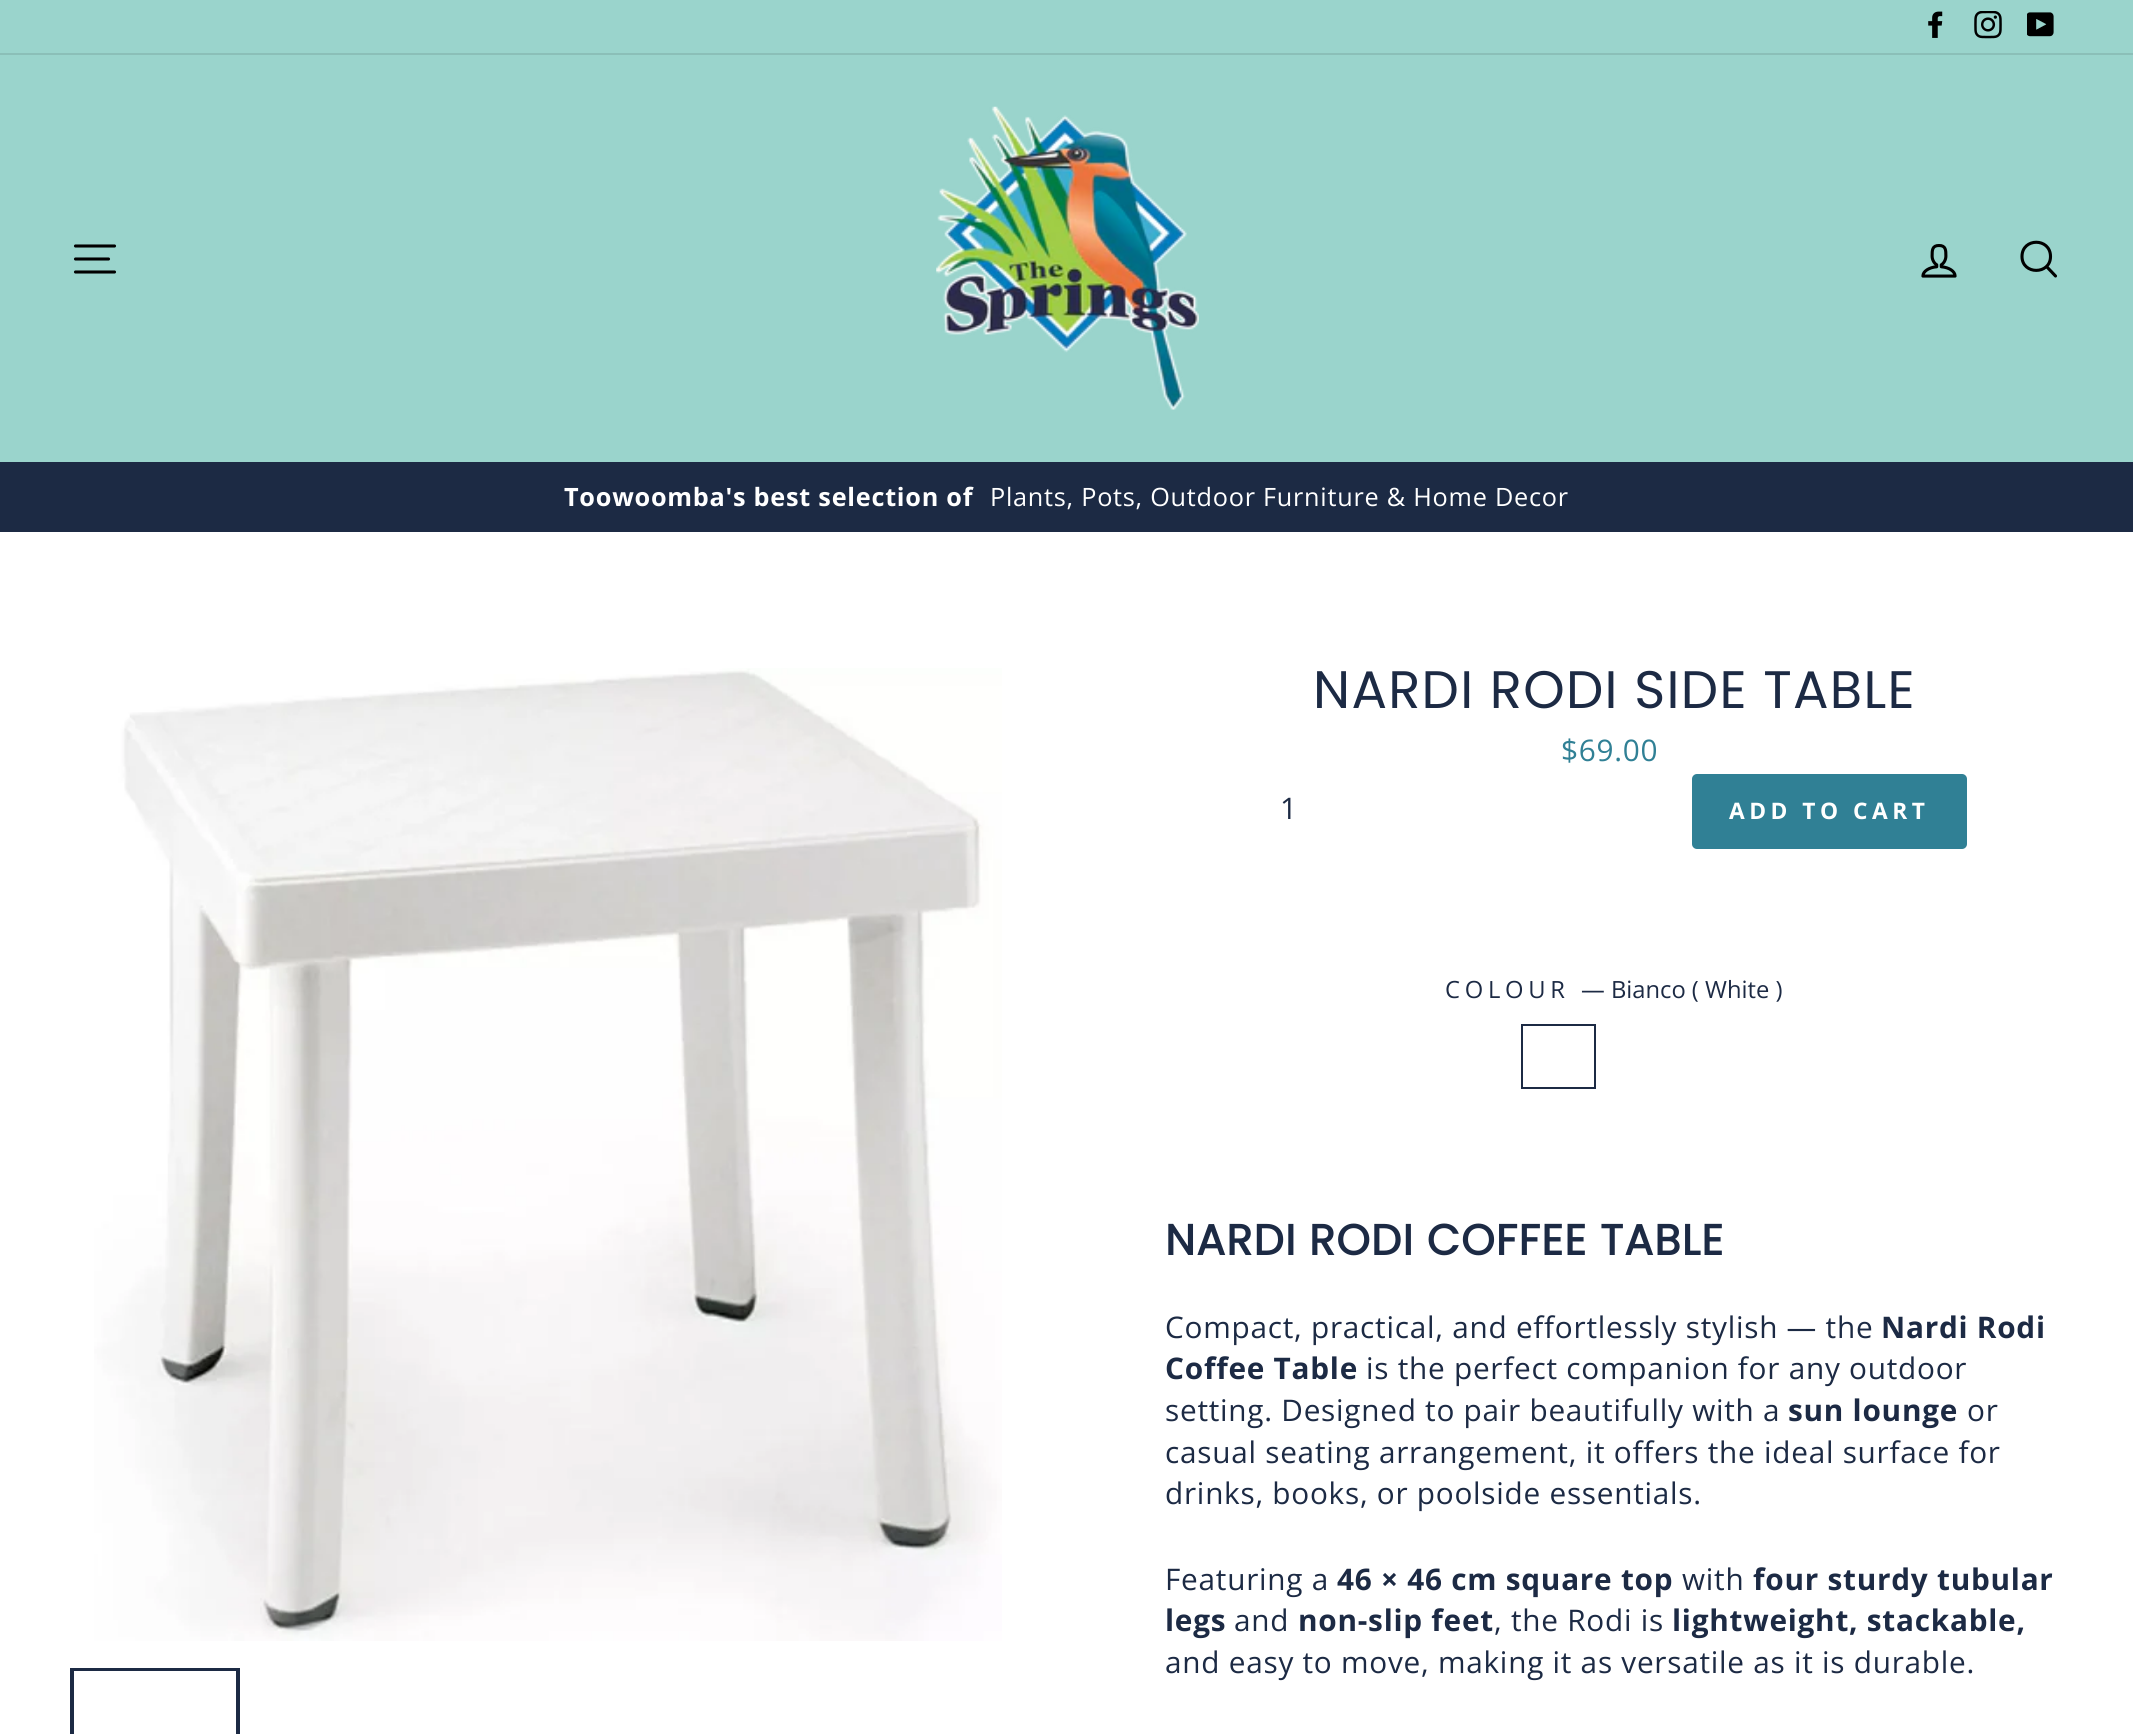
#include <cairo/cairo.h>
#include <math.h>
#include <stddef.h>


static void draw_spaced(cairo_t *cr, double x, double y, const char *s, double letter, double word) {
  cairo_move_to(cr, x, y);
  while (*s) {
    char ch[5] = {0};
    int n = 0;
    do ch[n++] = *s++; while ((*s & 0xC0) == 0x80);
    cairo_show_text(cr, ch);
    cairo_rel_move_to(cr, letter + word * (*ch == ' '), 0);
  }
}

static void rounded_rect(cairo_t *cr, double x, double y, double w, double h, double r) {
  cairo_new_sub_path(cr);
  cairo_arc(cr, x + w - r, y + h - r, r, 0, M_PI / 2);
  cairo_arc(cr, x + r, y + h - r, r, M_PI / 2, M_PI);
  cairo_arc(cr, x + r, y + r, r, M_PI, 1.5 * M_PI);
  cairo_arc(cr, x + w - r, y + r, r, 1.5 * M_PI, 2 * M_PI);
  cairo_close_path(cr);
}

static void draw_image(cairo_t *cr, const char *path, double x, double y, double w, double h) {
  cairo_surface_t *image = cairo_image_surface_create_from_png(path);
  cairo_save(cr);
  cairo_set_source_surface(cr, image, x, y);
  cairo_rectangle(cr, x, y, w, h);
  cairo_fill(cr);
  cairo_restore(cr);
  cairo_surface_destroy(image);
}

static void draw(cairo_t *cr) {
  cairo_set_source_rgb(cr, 1, 1, 1);
  cairo_paint(cr);
  cairo_set_source_rgb(cr, 154 / 255.0, 212 / 255.0, 204 / 255.0);
  cairo_rectangle(cr, 0, 0, 2133, 53);
  cairo_fill(cr);
  draw_image(cr, "images/1.png", 1928, 11, 15, 27);
  draw_image(cr, "images/2.png", 1974, 11, 28, 28);
  draw_image(cr, "images/3.png", 2027, 12, 27, 25);
  cairo_rectangle(cr, 0, 55, 2133, 407);
  cairo_fill(cr);
  cairo_set_source_rgb(cr, 139 / 255.0, 191 / 255.0, 184 / 255.0);
  cairo_rectangle(cr, 0, 53, 2133, 2);
  cairo_fill(cr);
  cairo_new_path(cr);
  cairo_move_to(cr, 75.5, 246);
  cairo_line_to(cr, 114.5, 246);
  cairo_move_to(cr, 75.5, 259);
  cairo_line_to(cr, 108.5, 259);
  cairo_move_to(cr, 75.5, 272);
  cairo_line_to(cr, 114.5, 272);
  cairo_set_source_rgb(cr, 0, 0, 0);
  cairo_set_line_width(cr, 3.1);
  cairo_set_line_cap(cr, CAIRO_LINE_CAP_ROUND);
  cairo_set_line_join(cr, CAIRO_LINE_JOIN_ROUND);
  cairo_stroke(cr);
  draw_image(cr, "images/4.png", 936, 106, 263, 304);
  draw_image(cr, "images/5.png", 1921, 244, 36, 34);
  cairo_new_path(cr);
  cairo_move_to(cr, 2050.5, 256.5);
  cairo_curve_to(cr, 2050.5, 275, 2022, 275, 2022, 256.5);
  cairo_curve_to(cr, 2022, 237.5, 2050.5, 237.5, 2050.5, 256.5);
  cairo_close_path(cr);
  cairo_move_to(cr, 2055.5, 276);
  cairo_line_to(cr, 2046.5, 266.5);
  cairo_stroke(cr);
  cairo_set_source_rgb(cr, 28 / 255.0, 42 / 255.0, 68 / 255.0);
  cairo_rectangle(cr, 0, 462, 2133, 70);
  cairo_fill(cr);
  draw_image(cr, "images/6.png", 94, 668, 908, 973);
  cairo_rectangle(cr, 72, 1670, 166, 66);
  cairo_set_line_width(cr, 4);
  cairo_set_line_cap(cr, CAIRO_LINE_CAP_BUTT);
  cairo_set_line_join(cr, CAIRO_LINE_JOIN_MITER);
  cairo_stroke(cr);
  cairo_set_source_rgb(cr, 1, 1, 1);
  cairo_rectangle(cr, 74, 1671, 162, 1);
  cairo_fill(cr);
  cairo_set_source_rgb(cr, 48 / 255.0, 128 / 255.0, 149 / 255.0);
  rounded_rect(cr, 1692, 774, 275, 75, 5);
  cairo_fill(cr);
  cairo_rectangle(cr, 1523, 1026, 71, 61);
  cairo_set_source_rgb(cr, 28 / 255.0, 42 / 255.0, 68 / 255.0);
  cairo_stroke(cr);
  cairo_rectangle(cr, 1525.5, 1028.5, 66, 56);
  cairo_set_source_rgb(cr, 1, 1, 1);
  cairo_set_line_width(cr, 5);
  cairo_stroke(cr);
  cairo_select_font_face(cr, "Open Sans", CAIRO_FONT_SLANT_NORMAL, CAIRO_FONT_WEIGHT_BOLD);
  cairo_set_font_size(cr, 25.25);
  draw_spaced(cr, 564, 506, "Toowoomba's best selection of", 0.75, 0);
  cairo_select_font_face(cr, "Open Sans", CAIRO_FONT_SLANT_NORMAL, CAIRO_FONT_WEIGHT_NORMAL);
  draw_spaced(cr, 990, 506, "Plants, Pots, Outdoor Furniture & Home Decor", 0.75, 0);
  cairo_select_font_face(cr, "Poppins", CAIRO_FONT_SLANT_NORMAL, CAIRO_FONT_WEIGHT_NORMAL);
  cairo_set_font_size(cr, 52.75);
  cairo_set_source_rgb(cr, 28 / 255.0, 42 / 255.0, 68 / 255.0);
  draw_spaced(cr, 1313, 708, "NARDI RODI SIDE TABLE", 1.3, 0);
  cairo_select_font_face(cr, "Open Sans", CAIRO_FONT_SLANT_NORMAL, CAIRO_FONT_WEIGHT_NORMAL);
  cairo_set_font_size(cr, 29.75);
  cairo_set_source_rgb(cr, 48 / 255.0, 128 / 255.0, 149 / 255.0);
  draw_spaced(cr, 1561, 761, "$69.00", 0.75, 0);
  cairo_set_source_rgb(cr, 28 / 255.0, 42 / 255.0, 68 / 255.0);
  draw_spaced(cr, 1280, 819, "1", 0.75, 0);
  cairo_select_font_face(cr, "Open Sans", CAIRO_FONT_SLANT_NORMAL, CAIRO_FONT_WEIGHT_BOLD);
  cairo_set_font_size(cr, 22.75);
  cairo_set_source_rgb(cr, 1, 1, 1);
  draw_spaced(cr, 1729, 819, "ADD TO CART", 4.5, 0);
  cairo_select_font_face(cr, "Open Sans", CAIRO_FONT_SLANT_NORMAL, CAIRO_FONT_WEIGHT_NORMAL);
  cairo_set_font_size(cr, 23.75);
  cairo_set_source_rgb(cr, 28 / 255.0, 42 / 255.0, 68 / 255.0);
  draw_spaced(cr, 1445, 998, "COLOUR", 4.75, 0);
  cairo_move_to(cr, 1581, 998);
  cairo_show_text(cr, "— Bianco ( White )");
  cairo_select_font_face(cr, "Poppins", CAIRO_FONT_SLANT_NORMAL, CAIRO_FONT_WEIGHT_BOLD);
  cairo_set_font_size(cr, 42.9);
  draw_spaced(cr, 1165, 1255, "NARDI RODI COFFEE TABLE", 1.1, 0);
  cairo_select_font_face(cr, "Open Sans", CAIRO_FONT_SLANT_NORMAL, CAIRO_FONT_WEIGHT_NORMAL);
  cairo_set_font_size(cr, 29.75);
  draw_spaced(cr, 1165, 1338, "Compact, practical, and effortlessly stylish — the", 0.75, 0);
  cairo_select_font_face(cr, "Open Sans", CAIRO_FONT_SLANT_NORMAL, CAIRO_FONT_WEIGHT_BOLD);
  draw_spaced(cr, 1881, 1338, "Nardi Rodi", 0.75, 0);
  draw_spaced(cr, 1165, 1379, "Coffee Table", 0.75, 0);
  cairo_select_font_face(cr, "Open Sans", CAIRO_FONT_SLANT_NORMAL, CAIRO_FONT_WEIGHT_NORMAL);
  draw_spaced(cr, 1366, 1379, "is the perfect companion for any outdoor", 0.75, 0);
  draw_spaced(cr, 1165, 1421, "setting. Designed to pair beautifully with a", 0.75, 0);
  cairo_select_font_face(cr, "Open Sans", CAIRO_FONT_SLANT_NORMAL, CAIRO_FONT_WEIGHT_BOLD);
  draw_spaced(cr, 1788, 1421, "sun lounge", 0.75, 0);
  cairo_select_font_face(cr, "Open Sans", CAIRO_FONT_SLANT_NORMAL, CAIRO_FONT_WEIGHT_NORMAL);
  draw_spaced(cr, 1967, 1421, "or", 0.75, 0);
  draw_spaced(cr, 1165, 1463, "casual seating arrangement, it offers the ideal surface for", 0.75, 0);
  draw_spaced(cr, 1165, 1504, "drinks, books, or poolside essentials.", 0.75, 0);
  draw_spaced(cr, 1165, 1590, "Featuring a", 0.75, 0);
  cairo_select_font_face(cr, "Open Sans", CAIRO_FONT_SLANT_NORMAL, CAIRO_FONT_WEIGHT_BOLD);
  draw_spaced(cr, 1337, 1590, "46 × 46 cm square top", 0.75, 0);
  cairo_select_font_face(cr, "Open Sans", CAIRO_FONT_SLANT_NORMAL, CAIRO_FONT_WEIGHT_NORMAL);
  draw_spaced(cr, 1682, 1590, "with", 0.75, 0);
  cairo_select_font_face(cr, "Open Sans", CAIRO_FONT_SLANT_NORMAL, CAIRO_FONT_WEIGHT_BOLD);
  draw_spaced(cr, 1753, 1590, "four sturdy tubular", 0.75, 0);
  draw_spaced(cr, 1165, 1631, "legs", 0.75, 0);
  cairo_select_font_face(cr, "Open Sans", CAIRO_FONT_SLANT_NORMAL, CAIRO_FONT_WEIGHT_NORMAL);
  draw_spaced(cr, 1234, 1631, "and", 0.75, 0);
  cairo_select_font_face(cr, "Open Sans", CAIRO_FONT_SLANT_NORMAL, CAIRO_FONT_WEIGHT_BOLD);
  draw_spaced(cr, 1298, 1631, "non-slip feet", 0.75, 0);
  cairo_select_font_face(cr, "Open Sans", CAIRO_FONT_SLANT_NORMAL, CAIRO_FONT_WEIGHT_NORMAL);
  draw_spaced(cr, 1494, 1631, ", the Rodi is", 0.75, 0);
  cairo_select_font_face(cr, "Open Sans", CAIRO_FONT_SLANT_NORMAL, CAIRO_FONT_WEIGHT_BOLD);
  draw_spaced(cr, 1672, 1631, "lightweight, stackable,", 0.75, 0);
  cairo_select_font_face(cr, "Open Sans", CAIRO_FONT_SLANT_NORMAL, CAIRO_FONT_WEIGHT_NORMAL);
  draw_spaced(cr, 1165, 1673, "and easy to move, making it as versatile as it is durable.", 0.75, 0);
}

int main(void) {
  cairo_surface_t *surface = cairo_image_surface_create(CAIRO_FORMAT_RGB24, 2133, 1734);
  cairo_t *cr = cairo_create(surface);
  cairo_font_options_t *options = cairo_font_options_create();
  cairo_font_options_set_hint_metrics(options, CAIRO_HINT_METRICS_OFF);
  cairo_font_options_set_hint_style(options, CAIRO_HINT_STYLE_NONE);
  cairo_set_font_options(cr, options);
  cairo_set_miter_limit(cr, 4);
  draw(cr);
  cairo_surface_write_to_png(surface, "out.png");
  cairo_font_options_destroy(options);
  cairo_destroy(cr);
  cairo_surface_destroy(surface);
  return 0;
}
